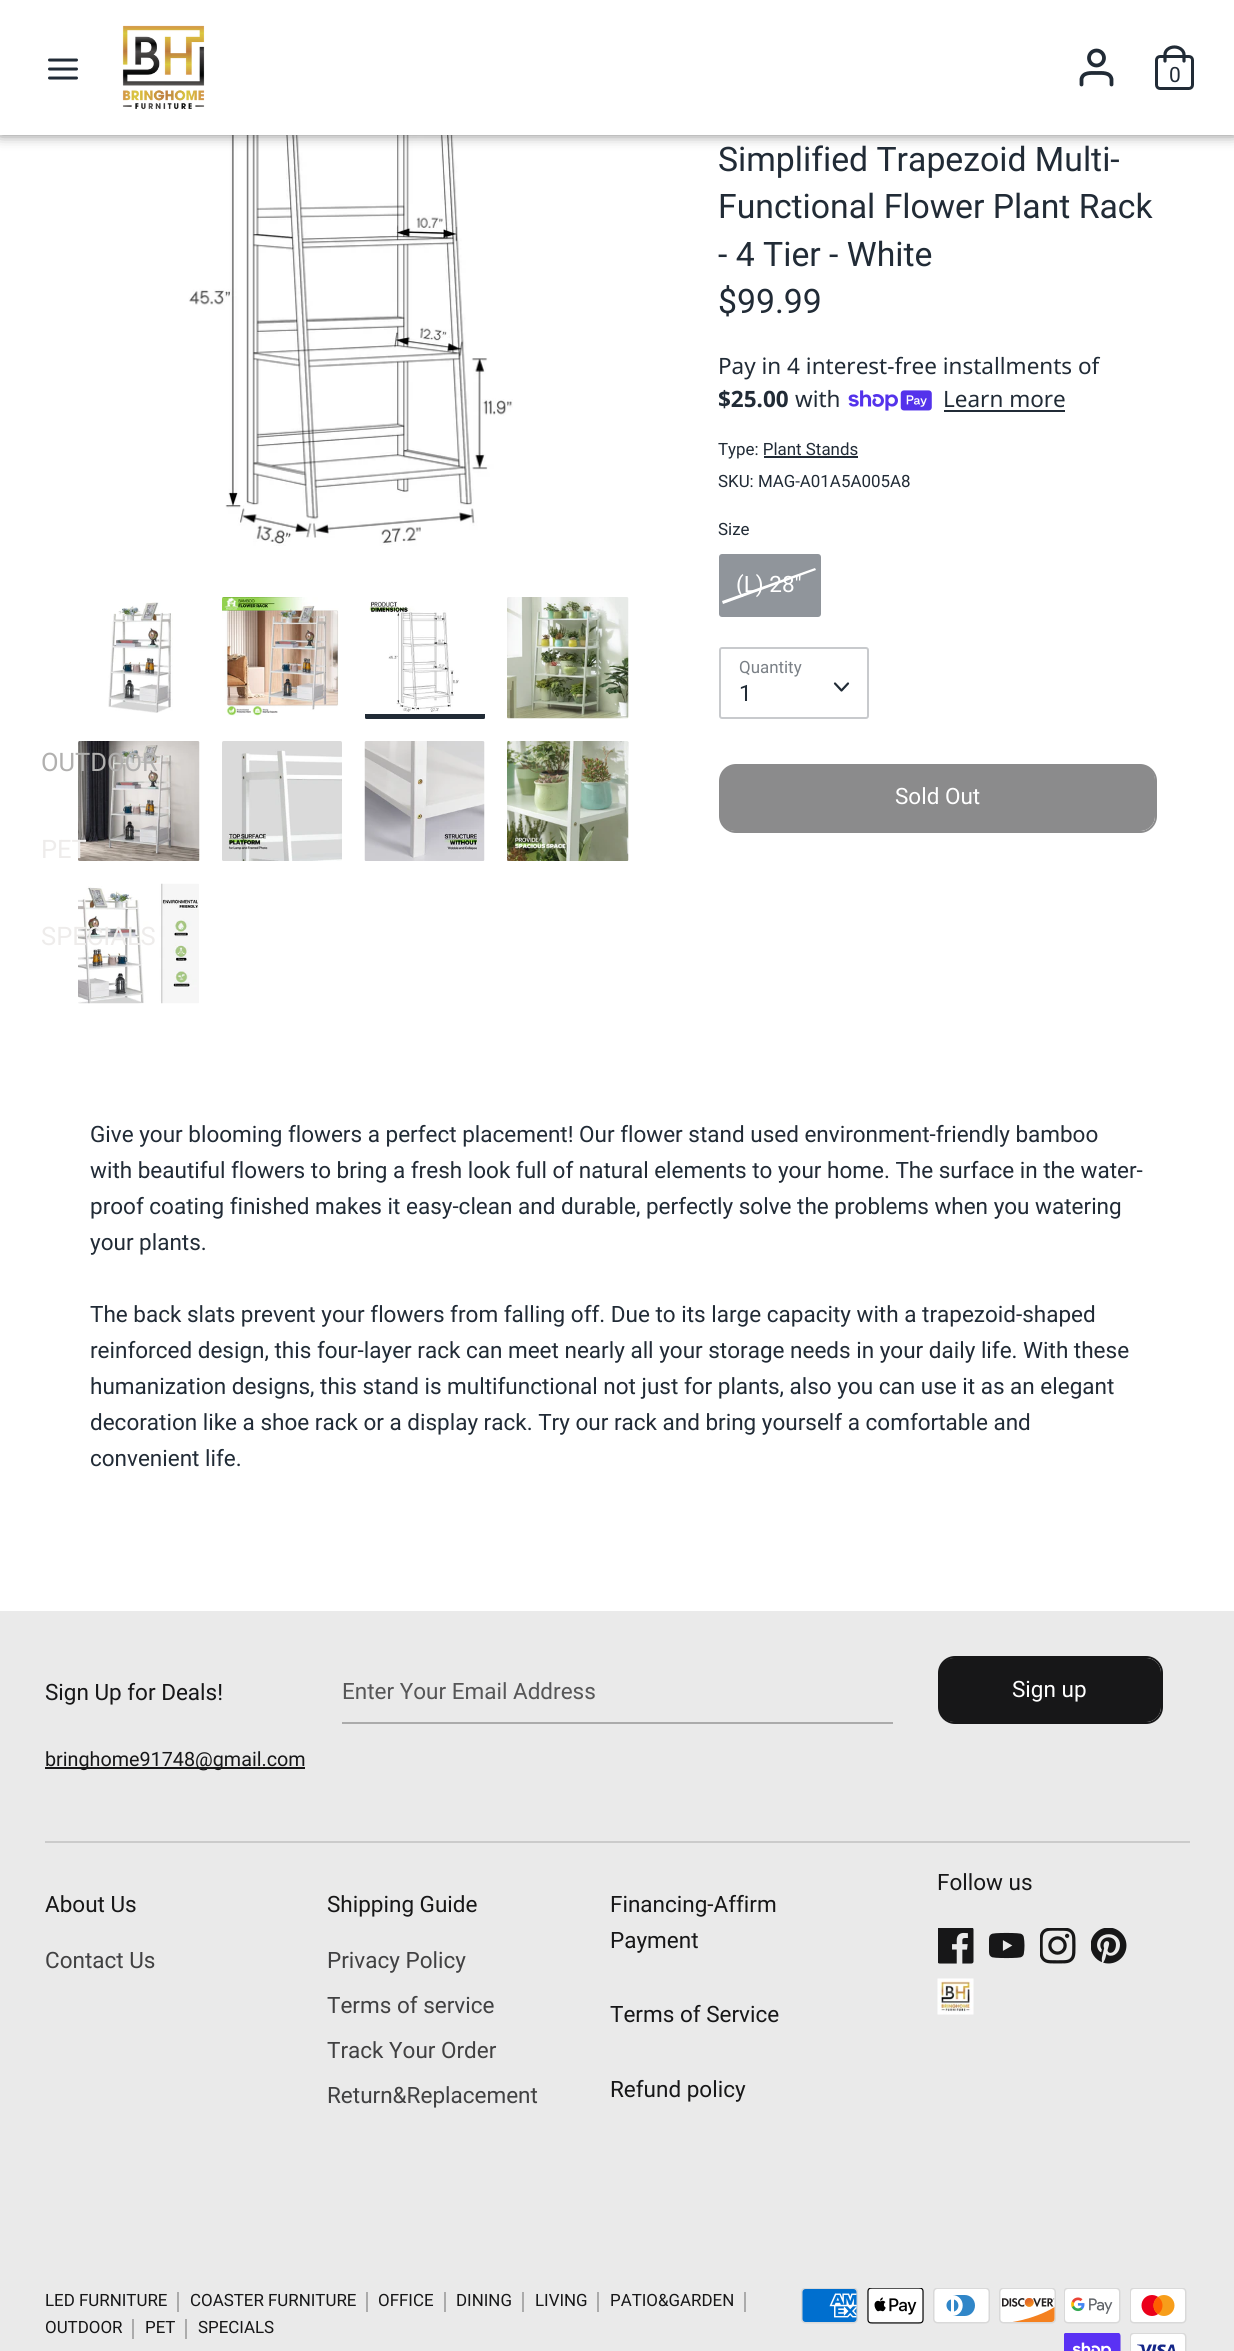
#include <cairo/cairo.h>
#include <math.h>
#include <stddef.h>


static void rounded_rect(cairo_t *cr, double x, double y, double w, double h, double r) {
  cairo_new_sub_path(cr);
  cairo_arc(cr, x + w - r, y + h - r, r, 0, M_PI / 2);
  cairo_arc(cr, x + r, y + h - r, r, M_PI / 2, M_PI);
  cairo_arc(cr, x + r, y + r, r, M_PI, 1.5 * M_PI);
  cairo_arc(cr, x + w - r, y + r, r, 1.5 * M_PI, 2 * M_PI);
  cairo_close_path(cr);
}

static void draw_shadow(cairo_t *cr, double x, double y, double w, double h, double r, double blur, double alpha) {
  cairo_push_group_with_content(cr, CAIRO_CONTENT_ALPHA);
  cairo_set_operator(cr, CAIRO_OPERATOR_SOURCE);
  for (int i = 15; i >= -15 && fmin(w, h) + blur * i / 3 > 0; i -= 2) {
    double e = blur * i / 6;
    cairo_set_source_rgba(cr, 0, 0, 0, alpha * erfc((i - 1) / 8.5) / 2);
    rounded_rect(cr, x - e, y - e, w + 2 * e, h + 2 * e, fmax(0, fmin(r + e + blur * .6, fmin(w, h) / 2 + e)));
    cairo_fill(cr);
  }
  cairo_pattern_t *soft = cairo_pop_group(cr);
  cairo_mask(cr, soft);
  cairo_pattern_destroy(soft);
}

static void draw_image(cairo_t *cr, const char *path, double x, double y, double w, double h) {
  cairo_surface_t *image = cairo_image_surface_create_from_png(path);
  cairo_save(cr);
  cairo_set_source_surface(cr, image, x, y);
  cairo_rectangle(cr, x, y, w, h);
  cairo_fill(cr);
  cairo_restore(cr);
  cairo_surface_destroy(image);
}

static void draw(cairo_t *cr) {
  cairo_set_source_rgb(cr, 1, 1, 1);
  cairo_paint(cr);
  draw_image(cr, "images/2.png", 103, 135, 410, 411);
  cairo_set_source_rgb(cr, 0, 0, 0);
  draw_shadow(cr, 0, -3, 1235, 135, 0, 7.5, 0.75);
  cairo_set_source_rgb(cr, 1, 1, 1);
  cairo_rectangle(cr, 0, 0, 1234, 135);
  cairo_fill(cr);
  cairo_new_path(cr);
  cairo_move_to(cr, 49.5, 69);
  cairo_line_to(cr, 76.5, 69);
  cairo_move_to(cr, 49.5, 60);
  cairo_line_to(cr, 76.5, 60);
  cairo_move_to(cr, 49.5, 78);
  cairo_line_to(cr, 76.5, 78);
  cairo_set_source_rgb(cr, 33 / 255.0, 43 / 255.0, 54 / 255.0);
  cairo_set_line_width(cr, 3);
  cairo_set_line_cap(cr, CAIRO_LINE_CAP_ROUND);
  cairo_stroke(cr);
  draw_image(cr, "images/1.png", 122, 25, 83, 85);
  cairo_new_path(cr);
  cairo_move_to(cr, 1111.5, 84.5);
  cairo_line_to(cr, 1111.5, 79);
  cairo_curve_to(cr, 1110, 72, 1102, 73, 1096.5, 73);
  cairo_curve_to(cr, 1091, 73, 1083, 72, 1081.5, 79);
  cairo_line_to(cr, 1081.5, 84.5);
  cairo_set_line_width(cr, 3.8);
  cairo_stroke(cr);
  cairo_arc(cr, 1096.5, 58, 7.5, 0, 2 * M_PI);
  cairo_set_line_cap(cr, CAIRO_LINE_CAP_BUTT);
  cairo_stroke(cr);
  rounded_rect(cr, 1156.5, 56.5, 36, 32, 3.5);
  cairo_set_line_width(cr, 3);
  cairo_stroke(cr);
  cairo_new_path(cr);
  cairo_move_to(cr, 1165, 61);
  cairo_line_to(cr, 1165, 54.5);
  cairo_curve_to(cr, 1165, 50.5, 1169, 47, 1174.5, 47);
  cairo_curve_to(cr, 1179.5, 47, 1184, 50.5, 1184, 54.5);
  cairo_line_to(cr, 1184, 61);
  cairo_set_line_width(cr, 3.2);
  cairo_set_line_cap(cr, CAIRO_LINE_CAP_ROUND);
  cairo_stroke(cr);
  draw_image(cr, "images/3.png", 108, 602, 65, 111);
  draw_image(cr, "images/4.png", 222, 597, 117, 119);
  draw_image(cr, "images/5.png", 369, 601, 91, 111);
  cairo_new_path(cr);
  cairo_move_to(cr, 365, 714);
  cairo_line_to(cr, 485, 714);
  cairo_line_to(cr, 485, 717.5);
  cairo_curve_to(cr, 485, 718.5, 484.5, 719, 483.5, 719);
  cairo_line_to(cr, 366.5, 719);
  cairo_curve_to(cr, 365.5, 719, 365, 718.5, 365, 717.5);
  cairo_close_path(cr);
  cairo_fill(cr);
  draw_image(cr, "images/6.png", 507, 597, 122, 122);
  draw_image(cr, "images/7.png", 78, 741, 122, 120);
  draw_image(cr, "images/8.png", 222, 741, 120, 120);
  draw_image(cr, "images/9.png", 364, 741, 121, 120);
  draw_image(cr, "images/10.png", 507, 741, 122, 120);
  draw_image(cr, "images/11.png", 78, 883, 121, 121);
  draw_image(cr, "images/12.png", 848, 390, 84, 21);
  cairo_rectangle(cr, 944, 410, 121, 2);
  cairo_fill(cr);
  cairo_rectangle(cr, 764, 456, 94, 2);
  cairo_fill(cr);
  cairo_set_source_rgb(cr, 144 / 255.0, 149 / 255.0, 155 / 255.0);
  rounded_rect(cr, 720, 555, 100, 61, 2);
  cairo_fill_preserve(cr);
  cairo_set_line_width(cr, 2);
  cairo_set_line_cap(cr, CAIRO_LINE_CAP_BUTT);
  cairo_stroke(cr);
  cairo_set_source_rgb(cr, 1, 1, 1);
  cairo_new_path(cr);
  cairo_move_to(cr, 722, 601);
  cairo_line_to(cr, 815, 568);
  cairo_line_to(cr, 816, 570);
  cairo_line_to(cr, 723, 604);
  cairo_close_path(cr);
  cairo_fill(cr);
  rounded_rect(cr, 720, 648, 148, 70, 2);
  cairo_set_source_rgb(cr, 200 / 255.0, 202 / 255.0, 205 / 255.0);
  cairo_stroke(cr);
  cairo_new_path(cr);
  cairo_move_to(cr, 835, 683.5);
  cairo_line_to(cr, 841.5, 690.5);
  cairo_line_to(cr, 848, 683.5);
  cairo_set_source_rgb(cr, 33 / 255.0, 43 / 255.0, 54 / 255.0);
  cairo_set_line_width(cr, 2.2);
  cairo_set_line_cap(cr, CAIRO_LINE_CAP_ROUND);
  cairo_set_line_join(cr, CAIRO_LINE_JOIN_ROUND);
  cairo_stroke(cr);
  rounded_rect(cr, 720, 765, 436, 67, 16);
  cairo_set_source_rgb(cr, 139 / 255.0, 139 / 255.0, 140 / 255.0);
  cairo_set_line_width(cr, 2);
  cairo_set_line_cap(cr, CAIRO_LINE_CAP_BUTT);
  cairo_set_line_join(cr, CAIRO_LINE_JOIN_MITER);
  cairo_stroke(cr);
  rounded_rect(cr, 720, 765, 435, 66, 15);
  cairo_fill(cr);
  cairo_set_source_rgb(cr, 234 / 255.0, 234 / 255.0, 234 / 255.0);
  cairo_rectangle(cr, 0, 1611, 1234, 740);
  cairo_fill(cr);
  cairo_set_source_rgb(cr, 171 / 255.0, 171 / 255.0, 171 / 255.0);
  cairo_rectangle(cr, 342, 1722, 551, 2);
  cairo_fill(cr);
  rounded_rect(cr, 939, 1657, 223, 66, 16);
  cairo_set_source_rgb(cr, 23 / 255.0, 23 / 255.0, 24 / 255.0);
  cairo_stroke(cr);
  rounded_rect(cr, 939, 1658, 222, 64, 15);
  cairo_fill(cr);
  cairo_rectangle(cr, 45, 1767, 260, 2);
  cairo_fill(cr);
  cairo_set_source_rgb(cr, 203 / 255.0, 203 / 255.0, 203 / 255.0);
  cairo_rectangle(cr, 45, 1841, 1145, 2);
  cairo_fill(cr);
  draw_image(cr, "images/13.png", 938, 1928, 36, 36);
  draw_image(cr, "images/14.png", 989, 1932, 36, 27);
  draw_image(cr, "images/15.png", 1040, 1928, 36, 36);
  draw_image(cr, "images/16.png", 1091, 1928, 36, 36);
  draw_image(cr, "images/17.png", 937, 1978, 37, 37);
  cairo_set_source_rgb(cr, 171 / 255.0, 171 / 255.0, 171 / 255.0);
  cairo_rectangle(cr, 177, 2292, 2, 20);
  cairo_fill(cr);
  cairo_rectangle(cr, 366, 2292, 2, 20);
  cairo_fill(cr);
  cairo_rectangle(cr, 444, 2292, 2, 20);
  cairo_fill(cr);
  cairo_rectangle(cr, 522, 2292, 2, 20);
  cairo_fill(cr);
  cairo_rectangle(cr, 597, 2292, 2, 20);
  cairo_fill(cr);
  cairo_rectangle(cr, 744, 2292, 2, 20);
  cairo_fill(cr);
  cairo_rectangle(cr, 132, 2319, 2, 20);
  cairo_fill(cr);
  cairo_rectangle(cr, 185, 2319, 2, 20);
  cairo_fill(cr);
  draw_image(cr, "images/18.png", 801, 2288, 57, 36);
  draw_image(cr, "images/19.png", 867, 2288, 57, 36);
  draw_image(cr, "images/20.png", 933, 2288, 57, 36);
  draw_image(cr, "images/21.png", 999, 2288, 57, 36);
  draw_image(cr, "images/22.png", 1064, 2288, 57, 36);
  draw_image(cr, "images/23.png", 1130, 2288, 57, 36);
  draw_image(cr, "images/24.png", 1064, 2333, 57, 18);
  draw_image(cr, "images/25.png", 1130, 2333, 57, 18);
  cairo_select_font_face(cr, "Roboto", CAIRO_FONT_SLANT_NORMAL, CAIRO_FONT_WEIGHT_NORMAL);
  cairo_set_font_size(cr, 21);
  cairo_set_source_rgb(cr, 33 / 255.0, 43 / 255.0, 54 / 255.0);
  cairo_move_to(cr, 1169, 82);
  cairo_show_text(cr, "0");
  cairo_set_font_size(cr, 25.5);
  cairo_set_source_rgb(cr, 177 / 255.0, 176 / 255.0, 175 / 255.0);
  cairo_move_to(cr, 41, 771);
  cairo_show_text(cr, "OUTDOOR");
  cairo_set_source_rgb(cr, 238 / 255.0, 236 / 255.0, 235 / 255.0);
  cairo_move_to(cr, 41, 858);
  cairo_show_text(cr, "PET");
  cairo_move_to(cr, 41, 945);
  cairo_show_text(cr, "SPECIALS");
  cairo_set_font_size(cr, 33.75);
  cairo_set_source_rgb(cr, 33 / 255.0, 43 / 255.0, 54 / 255.0);
  cairo_move_to(cr, 718, 171);
  cairo_show_text(cr, "Simplified Trapezoid Multi-");
  cairo_move_to(cr, 718, 218);
  cairo_show_text(cr, "Functional Flower Plant Rack");
  cairo_move_to(cr, 718, 266);
  cairo_show_text(cr, "- 4 Tier - White");
  cairo_move_to(cr, 718, 313);
  cairo_show_text(cr, "$99.99");
  cairo_select_font_face(cr, "Noto Sans", CAIRO_FONT_SLANT_NORMAL, CAIRO_FONT_WEIGHT_NORMAL);
  cairo_set_font_size(cr, 22.5);
  cairo_move_to(cr, 718, 374);
  cairo_show_text(cr, "Pay in 4 interest-free installments of");
  cairo_select_font_face(cr, "Noto Sans", CAIRO_FONT_SLANT_NORMAL, CAIRO_FONT_WEIGHT_BOLD);
  cairo_move_to(cr, 718, 407);
  cairo_show_text(cr, "$25.00");
  cairo_select_font_face(cr, "Noto Sans", CAIRO_FONT_SLANT_NORMAL, CAIRO_FONT_WEIGHT_NORMAL);
  cairo_move_to(cr, 795, 407);
  cairo_show_text(cr, "with");
  cairo_move_to(cr, 943, 407);
  cairo_show_text(cr, "Learn more");
  cairo_select_font_face(cr, "Roboto", CAIRO_FONT_SLANT_NORMAL, CAIRO_FONT_WEIGHT_NORMAL);
  cairo_set_font_size(cr, 16.9);
  cairo_move_to(cr, 718, 455);
  cairo_show_text(cr, "Type: Plant Stands");
  cairo_move_to(cr, 718, 487);
  cairo_show_text(cr, "SKU: MAG-A01A5A005A8");
  cairo_move_to(cr, 718, 535);
  cairo_show_text(cr, "Size");
  cairo_set_font_size(cr, 22.5);
  cairo_set_source_rgb(cr, 1, 1, 1);
  cairo_move_to(cr, 736, 592);
  cairo_show_text(cr, "(L) 28\"");
  cairo_set_font_size(cr, 16.9);
  cairo_set_source_rgb(cr, 122 / 255.0, 128 / 255.0, 134 / 255.0);
  cairo_move_to(cr, 739, 673);
  cairo_show_text(cr, "Quantity");
  cairo_set_font_size(cr, 22.5);
  cairo_set_source_rgb(cr, 33 / 255.0, 43 / 255.0, 54 / 255.0);
  cairo_move_to(cr, 739, 701);
  cairo_show_text(cr, "1");
  cairo_set_source_rgb(cr, 1, 1, 1);
  cairo_move_to(cr, 895, 804);
  cairo_show_text(cr, "Sold Out");
  cairo_set_source_rgb(cr, 33 / 255.0, 43 / 255.0, 54 / 255.0);
  cairo_move_to(cr, 90, 1142);
  cairo_show_text(cr, "Give your blooming flowers a perfect placement! Our flower stand used environment-friendly bamboo");
  cairo_move_to(cr, 90, 1178);
  cairo_show_text(cr, "with beautiful flowers to bring a fresh look full of natural elements to your home. The surface in the water-");
  cairo_move_to(cr, 90, 1214);
  cairo_show_text(cr, "proof coating finished makes it easy-clean and durable, perfectly solve the problems when you watering");
  cairo_move_to(cr, 90, 1250);
  cairo_show_text(cr, "your plants.");
  cairo_move_to(cr, 90, 1322);
  cairo_show_text(cr, "The back slats prevent your flowers from falling off. Due to its large capacity with a trapezoid-shaped");
  cairo_move_to(cr, 90, 1358);
  cairo_show_text(cr, "reinforced design, this four-layer rack can meet nearly all your storage needs in your daily life. With these");
  cairo_move_to(cr, 90, 1394);
  cairo_show_text(cr, "humanization designs, this stand is multifunctional not just for plants, also you can use it as an elegant");
  cairo_move_to(cr, 90, 1430);
  cairo_show_text(cr, "decoration like a shoe rack or a display rack. Try our rack and bring yourself a comfortable and");
  cairo_move_to(cr, 90, 1466);
  cairo_show_text(cr, "convenient life.");
  cairo_set_source_rgb(cr, 23 / 255.0, 23 / 255.0, 24 / 255.0);
  cairo_move_to(cr, 45, 1700);
  cairo_show_text(cr, "Sign Up for Deals!");
  cairo_set_source_rgb(cr, 86 / 255.0, 86 / 255.0, 87 / 255.0);
  cairo_move_to(cr, 342, 1699);
  cairo_show_text(cr, "Enter Your Email Address");
  cairo_set_source_rgb(cr, 1, 1, 1);
  cairo_move_to(cr, 1012, 1697);
  cairo_show_text(cr, "Sign up");
  cairo_set_font_size(cr, 19.75);
  cairo_set_source_rgb(cr, 23 / 255.0, 23 / 255.0, 24 / 255.0);
  cairo_move_to(cr, 45, 1766);
  cairo_show_text(cr, "bringhome91748@gmail.com");
  cairo_set_font_size(cr, 22.5);
  cairo_move_to(cr, 937, 1890);
  cairo_show_text(cr, "Follow us");
  cairo_move_to(cr, 45, 1912);
  cairo_show_text(cr, "About Us");
  cairo_set_source_rgb(cr, 65 / 255.0, 65 / 255.0, 66 / 255.0);
  cairo_move_to(cr, 45, 1968);
  cairo_show_text(cr, "Contact Us");
  cairo_set_source_rgb(cr, 23 / 255.0, 23 / 255.0, 24 / 255.0);
  cairo_move_to(cr, 327, 1912);
  cairo_show_text(cr, "Shipping Guide");
  cairo_set_source_rgb(cr, 65 / 255.0, 65 / 255.0, 66 / 255.0);
  cairo_move_to(cr, 327, 1968);
  cairo_show_text(cr, "Privacy Policy");
  cairo_move_to(cr, 327, 2013);
  cairo_show_text(cr, "Terms of service");
  cairo_move_to(cr, 327, 2058);
  cairo_show_text(cr, "Track Your Order");
  cairo_move_to(cr, 327, 2103);
  cairo_show_text(cr, "Return&Replacement");
  cairo_set_source_rgb(cr, 23 / 255.0, 23 / 255.0, 24 / 255.0);
  cairo_move_to(cr, 610, 1912);
  cairo_show_text(cr, "Financing-Affirm");
  cairo_move_to(cr, 610, 1948);
  cairo_show_text(cr, "Payment");
  cairo_move_to(cr, 610, 2022);
  cairo_show_text(cr, "Terms of Service");
  cairo_move_to(cr, 610, 2097);
  cairo_show_text(cr, "Refund policy");
  cairo_set_font_size(cr, 16.9);
  cairo_move_to(cr, 45, 2306);
  cairo_show_text(cr, "LED FURNITURE");
  cairo_move_to(cr, 190, 2306);
  cairo_show_text(cr, "COASTER FURNITURE");
  cairo_move_to(cr, 378, 2306);
  cairo_show_text(cr, "OFFICE");
  cairo_move_to(cr, 456, 2306);
  cairo_show_text(cr, "DINING");
  cairo_move_to(cr, 535, 2306);
  cairo_show_text(cr, "LIVING");
  cairo_move_to(cr, 610, 2306);
  cairo_show_text(cr, "PATIO&GARDEN");
  cairo_move_to(cr, 45, 2333);
  cairo_show_text(cr, "OUTDOOR");
  cairo_move_to(cr, 145, 2333);
  cairo_show_text(cr, "PET");
  cairo_move_to(cr, 198, 2333);
  cairo_show_text(cr, "SPECIALS");
}

int main(void) {
  cairo_surface_t *surface = cairo_image_surface_create(CAIRO_FORMAT_RGB24, 1234, 2351);
  cairo_t *cr = cairo_create(surface);
  cairo_font_options_t *options = cairo_font_options_create();
  cairo_font_options_set_hint_metrics(options, CAIRO_HINT_METRICS_OFF);
  cairo_font_options_set_hint_style(options, CAIRO_HINT_STYLE_NONE);
  cairo_set_font_options(cr, options);
  cairo_set_miter_limit(cr, 4);
  draw(cr);
  cairo_surface_write_to_png(surface, "out.png");
  cairo_font_options_destroy(options);
  cairo_destroy(cr);
  cairo_surface_destroy(surface);
  return 0;
}
